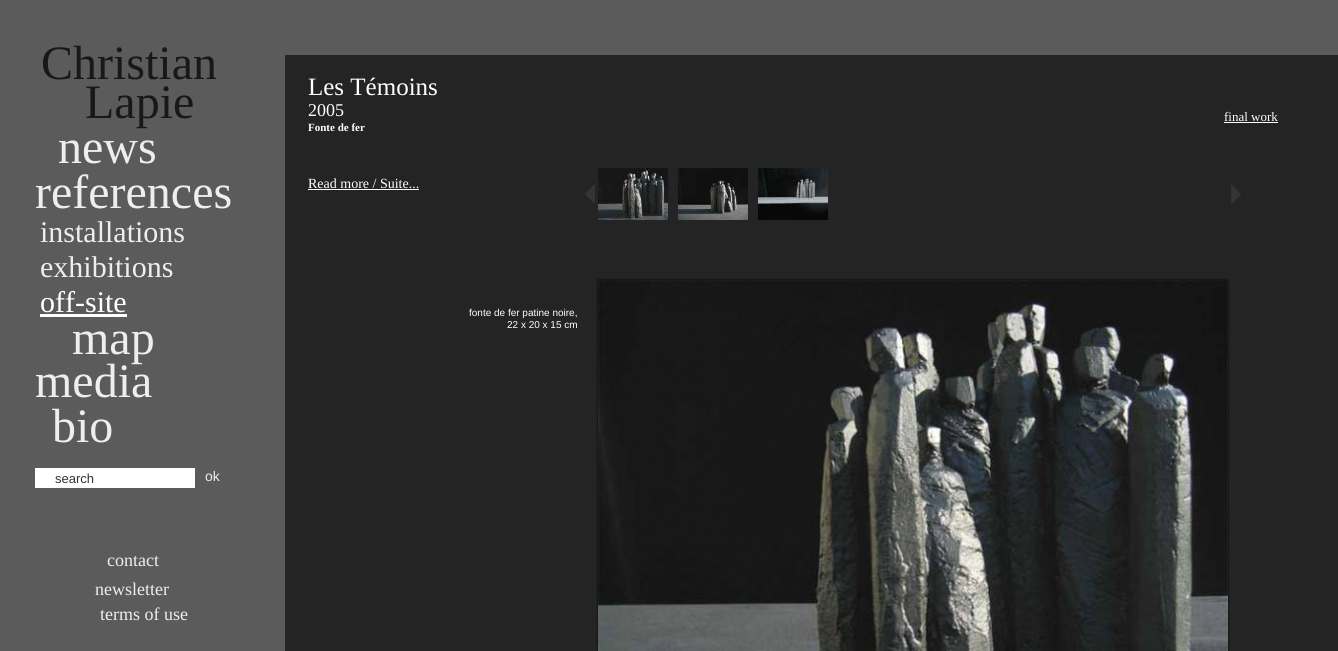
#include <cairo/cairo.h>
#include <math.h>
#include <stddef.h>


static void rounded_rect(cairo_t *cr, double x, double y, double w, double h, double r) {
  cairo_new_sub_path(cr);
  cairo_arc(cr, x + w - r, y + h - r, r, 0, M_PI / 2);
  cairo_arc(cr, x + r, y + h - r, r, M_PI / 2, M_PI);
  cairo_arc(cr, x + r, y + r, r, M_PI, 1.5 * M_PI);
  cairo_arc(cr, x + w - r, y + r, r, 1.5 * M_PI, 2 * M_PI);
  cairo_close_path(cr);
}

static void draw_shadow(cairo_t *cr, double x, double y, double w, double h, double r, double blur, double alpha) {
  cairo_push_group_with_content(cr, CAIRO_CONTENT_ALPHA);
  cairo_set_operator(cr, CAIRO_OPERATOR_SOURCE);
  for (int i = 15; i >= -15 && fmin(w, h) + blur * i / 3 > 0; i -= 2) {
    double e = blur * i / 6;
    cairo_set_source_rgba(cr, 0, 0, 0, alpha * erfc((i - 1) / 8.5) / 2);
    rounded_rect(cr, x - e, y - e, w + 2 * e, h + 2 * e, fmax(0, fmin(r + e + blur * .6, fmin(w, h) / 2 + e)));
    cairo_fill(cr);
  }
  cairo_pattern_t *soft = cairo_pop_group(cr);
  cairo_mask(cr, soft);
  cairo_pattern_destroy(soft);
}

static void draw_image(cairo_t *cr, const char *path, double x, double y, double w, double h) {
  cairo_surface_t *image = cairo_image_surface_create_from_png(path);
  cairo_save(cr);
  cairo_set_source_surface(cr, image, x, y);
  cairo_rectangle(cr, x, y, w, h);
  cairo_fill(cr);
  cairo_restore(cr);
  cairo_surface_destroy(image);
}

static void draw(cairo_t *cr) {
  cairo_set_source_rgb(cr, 91 / 255.0, 91 / 255.0, 91 / 255.0);
  cairo_paint(cr);
  cairo_set_source_rgb(cr, 1, 1, 1);
  cairo_rectangle(cr, 40, 314, 87, 3);
  cairo_fill(cr);
  cairo_rectangle(cr, 35, 468, 160, 20);
  cairo_fill(cr);
  cairo_set_source_rgb(cr, 36 / 255.0, 36 / 255.0, 36 / 255.0);
  cairo_rectangle(cr, 285, 55, 1053, 596);
  cairo_fill(cr);
  cairo_set_source_rgb(cr, 1, 1, 1);
  cairo_rectangle(cr, 1224, 122, 54, 1);
  cairo_fill(cr);
  cairo_rectangle(cr, 308, 189, 111, 1);
  cairo_fill(cr);
  draw_image(cr, "images/1.png", 585, 184, 10, 20);
  draw_image(cr, "images/2.png", 598, 168, 70, 52);
  draw_image(cr, "images/3.png", 678, 168, 70, 52);
  draw_image(cr, "images/4.png", 758, 168, 70, 52);
  draw_image(cr, "images/5.png", 1231, 184, 10, 20);
  cairo_set_source_rgb(cr, 0, 0, 0);
  draw_shadow(cr, 598, 280, 630, 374, 0, 1, 1);
  draw_image(cr, "images/6.png", 598, 280, 630, 371);
  cairo_select_font_face(cr, "Liberation Serif", CAIRO_FONT_SLANT_NORMAL, CAIRO_FONT_WEIGHT_NORMAL);
  cairo_set_font_size(cr, 48);
  cairo_set_source_rgb(cr, 26 / 255.0, 23 / 255.0, 27 / 255.0);
  cairo_move_to(cr, 41, 79);
  cairo_show_text(cr, "Christian");
  cairo_move_to(cr, 85, 118);
  cairo_show_text(cr, "Lapie");
  cairo_set_source_rgb(cr, 238 / 255.0, 238 / 255.0, 238 / 255.0);
  cairo_move_to(cr, 58, 163);
  cairo_show_text(cr, "news");
  cairo_move_to(cr, 35, 208);
  cairo_show_text(cr, "references");
  cairo_set_font_size(cr, 30);
  cairo_move_to(cr, 40, 242);
  cairo_show_text(cr, "installations");
  cairo_move_to(cr, 40, 277);
  cairo_show_text(cr, "exhibitions");
  cairo_set_source_rgb(cr, 1, 1, 1);
  cairo_move_to(cr, 40, 312);
  cairo_show_text(cr, "off-site");
  cairo_set_font_size(cr, 48);
  cairo_set_source_rgb(cr, 238 / 255.0, 238 / 255.0, 238 / 255.0);
  cairo_move_to(cr, 72, 354);
  cairo_show_text(cr, "map");
  cairo_move_to(cr, 35, 397);
  cairo_show_text(cr, "media");
  cairo_move_to(cr, 52, 442);
  cairo_show_text(cr, "bio");
  cairo_select_font_face(cr, "Liberation Sans", CAIRO_FONT_SLANT_NORMAL, CAIRO_FONT_WEIGHT_NORMAL);
  cairo_set_font_size(cr, 13);
  cairo_set_source_rgb(cr, 51 / 255.0, 51 / 255.0, 51 / 255.0);
  cairo_move_to(cr, 55, 483);
  cairo_show_text(cr, "search");
  cairo_set_font_size(cr, 14);
  cairo_set_source_rgb(cr, 238 / 255.0, 238 / 255.0, 238 / 255.0);
  cairo_move_to(cr, 205, 481);
  cairo_show_text(cr, "ok");
  cairo_select_font_face(cr, "Liberation Serif", CAIRO_FONT_SLANT_NORMAL, CAIRO_FONT_WEIGHT_NORMAL);
  cairo_set_font_size(cr, 18);
  cairo_move_to(cr, 107, 566);
  cairo_show_text(cr, "contact");
  cairo_move_to(cr, 95, 595);
  cairo_show_text(cr, "newsletter");
  cairo_move_to(cr, 100, 620);
  cairo_show_text(cr, "terms of use");
  cairo_set_font_size(cr, 25);
  cairo_set_source_rgb(cr, 1, 1, 1);
  cairo_move_to(cr, 308, 95);
  cairo_show_text(cr, "Les Témoins");
  cairo_set_font_size(cr, 18);
  cairo_move_to(cr, 308, 116);
  cairo_show_text(cr, "2005");
  cairo_set_font_size(cr, 13);
  cairo_move_to(cr, 1224, 121);
  cairo_show_text(cr, "final work");
  cairo_select_font_face(cr, "Liberation Serif", CAIRO_FONT_SLANT_NORMAL, CAIRO_FONT_WEIGHT_BOLD);
  cairo_set_font_size(cr, 11);
  cairo_move_to(cr, 308, 131);
  cairo_show_text(cr, "Fonte de fer");
  cairo_select_font_face(cr, "Liberation Serif", CAIRO_FONT_SLANT_NORMAL, CAIRO_FONT_WEIGHT_NORMAL);
  cairo_set_font_size(cr, 14);
  cairo_move_to(cr, 308, 188);
  cairo_show_text(cr, "Read more / Suite...");
  cairo_select_font_face(cr, "Liberation Sans", CAIRO_FONT_SLANT_NORMAL, CAIRO_FONT_WEIGHT_NORMAL);
  cairo_set_font_size(cr, 10);
  cairo_move_to(cr, 469, 316);
  cairo_show_text(cr, "fonte de fer patine noire,");
  cairo_move_to(cr, 507, 328);
  cairo_show_text(cr, "22 x 20 x 15 cm");
}

int main(void) {
  cairo_surface_t *surface = cairo_image_surface_create(CAIRO_FORMAT_RGB24, 1338, 651);
  cairo_t *cr = cairo_create(surface);
  cairo_font_options_t *options = cairo_font_options_create();
  cairo_font_options_set_hint_metrics(options, CAIRO_HINT_METRICS_OFF);
  cairo_font_options_set_hint_style(options, CAIRO_HINT_STYLE_NONE);
  cairo_set_font_options(cr, options);
  cairo_set_miter_limit(cr, 4);
  draw(cr);
  cairo_surface_write_to_png(surface, "out.png");
  cairo_font_options_destroy(options);
  cairo_destroy(cr);
  cairo_surface_destroy(surface);
  return 0;
}
